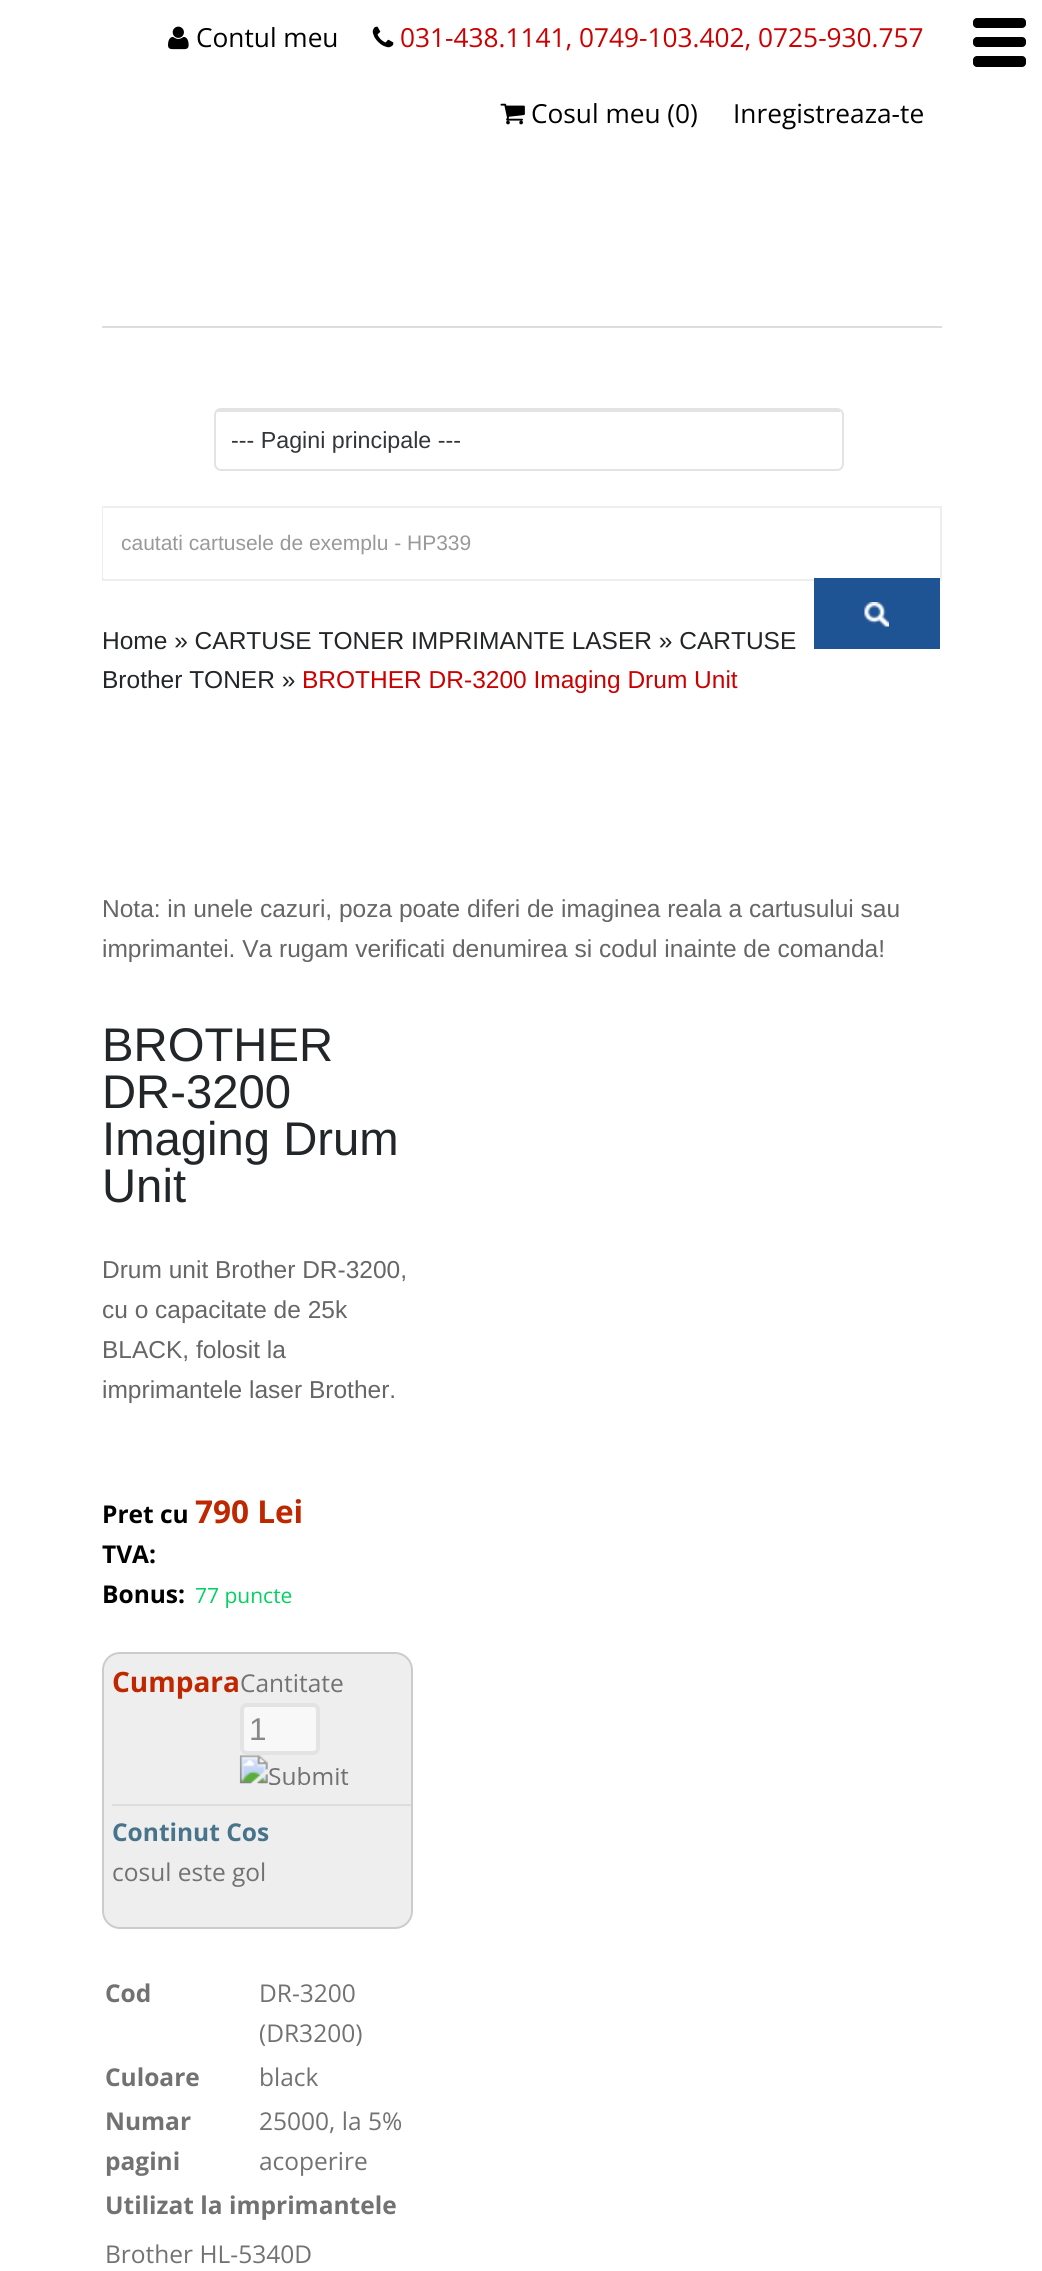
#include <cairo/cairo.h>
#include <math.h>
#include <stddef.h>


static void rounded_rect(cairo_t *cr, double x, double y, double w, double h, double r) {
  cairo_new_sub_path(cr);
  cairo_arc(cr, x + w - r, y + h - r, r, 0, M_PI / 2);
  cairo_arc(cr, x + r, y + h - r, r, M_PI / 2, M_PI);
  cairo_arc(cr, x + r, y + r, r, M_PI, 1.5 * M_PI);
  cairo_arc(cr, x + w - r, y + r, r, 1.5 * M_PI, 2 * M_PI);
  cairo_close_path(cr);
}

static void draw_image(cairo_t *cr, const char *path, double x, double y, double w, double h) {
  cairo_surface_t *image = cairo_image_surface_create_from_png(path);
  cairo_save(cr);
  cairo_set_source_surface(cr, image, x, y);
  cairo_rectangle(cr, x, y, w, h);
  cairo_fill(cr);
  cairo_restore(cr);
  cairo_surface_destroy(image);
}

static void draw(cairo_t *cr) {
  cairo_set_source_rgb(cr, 1, 1, 1);
  cairo_paint(cr);
  draw_image(cr, "images/1.png", 168, 26, 21, 24);
  draw_image(cr, "images/2.png", 372, 26, 22, 22);
  draw_image(cr, "images/3.png", 500, 103, 25, 22);
  cairo_set_source_rgb(cr, 221 / 255.0, 221 / 255.0, 221 / 255.0);
  cairo_rectangle(cr, 102, 326, 840, 2);
  cairo_fill(cr);
  cairo_set_source_rgb(cr, 0, 0, 0);
  rounded_rect(cr, 973, 18, 53, 10, 4);
  cairo_fill(cr);
  rounded_rect(cr, 973, 37, 53, 10, 4);
  cairo_fill(cr);
  rounded_rect(cr, 973, 56, 53, 11, 4);
  cairo_fill(cr);
  rounded_rect(cr, 215, 409, 628, 61, 6);
  cairo_set_source_rgb(cr, 227 / 255.0, 227 / 255.0, 227 / 255.0);
  cairo_stroke(cr);
  cairo_rectangle(cr, 217, 410, 623, 2);
  cairo_fill(cr);
  cairo_rectangle(cr, 103, 507, 838, 73);
  cairo_set_source_rgb(cr, 238 / 255.0, 238 / 255.0, 238 / 255.0);
  cairo_stroke(cr);
  cairo_set_source_rgb(cr, 254 / 255.0, 254 / 255.0, 254 / 255.0);
  cairo_rectangle(cr, 103, 508, 1, 70);
  cairo_fill(cr);
  cairo_set_source_rgb(cr, 30 / 255.0, 84 / 255.0, 148 / 255.0);
  cairo_rectangle(cr, 814, 578, 126, 71);
  cairo_fill(cr);
  draw_image(cr, "images/4.png", 864, 602, 25, 25);
  cairo_set_source_rgb(cr, 238 / 255.0, 238 / 255.0, 238 / 255.0);
  rounded_rect(cr, 103, 1653, 309, 275, 17);
  cairo_fill_preserve(cr);
  cairo_set_source_rgb(cr, 204 / 255.0, 204 / 255.0, 204 / 255.0);
  cairo_stroke(cr);
  cairo_set_source_rgb(cr, 248 / 255.0, 248 / 255.0, 248 / 255.0);
  rounded_rect(cr, 242, 1705, 76, 48, 5);
  cairo_fill_preserve(cr);
  cairo_set_source_rgb(cr, 227 / 255.0, 227 / 255.0, 227 / 255.0);
  cairo_set_line_width(cr, 4);
  cairo_stroke(cr);
  draw_image(cr, "images/5.png", 239, 1755, 110, 30);
  cairo_set_source_rgb(cr, 221 / 255.0, 221 / 255.0, 221 / 255.0);
  cairo_rectangle(cr, 112, 1804, 299, 2);
  cairo_fill(cr);
  cairo_select_font_face(cr, "Open Sans", CAIRO_FONT_SLANT_NORMAL, CAIRO_FONT_WEIGHT_NORMAL);
  cairo_set_font_size(cr, 26.25);
  cairo_set_source_rgb(cr, 0, 0, 0);
  cairo_move_to(cr, 196, 47);
  cairo_show_text(cr, "Contul meu");
  cairo_set_source_rgb(cr, 204 / 255.0, 0, 0);
  cairo_move_to(cr, 400, 47);
  cairo_show_text(cr, "031-438.1141, 0749-103.402, 0725-930.757");
  cairo_set_source_rgb(cr, 0, 0, 0);
  cairo_move_to(cr, 531, 123);
  cairo_show_text(cr, "Cosul meu (0)");
  cairo_move_to(cr, 733, 123);
  cairo_show_text(cr, "Inregistreaza-te");
  cairo_select_font_face(cr, "Liberation Sans", CAIRO_FONT_SLANT_NORMAL, CAIRO_FONT_WEIGHT_NORMAL);
  cairo_set_font_size(cr, 23.25);
  cairo_set_source_rgb(cr, 51 / 255.0, 54 / 255.0, 57 / 255.0);
  cairo_move_to(cr, 231, 448);
  cairo_show_text(cr, "--- Pagini principale ---");
  cairo_set_font_size(cr, 21);
  cairo_set_source_rgb(cr, 153 / 255.0, 153 / 255.0, 153 / 255.0);
  cairo_move_to(cr, 121, 550);
  cairo_show_text(cr, "cautati cartusele de exemplu - HP339");
  cairo_set_font_size(cr, 24.5);
  cairo_set_source_rgb(cr, 34 / 255.0, 38 / 255.0, 40 / 255.0);
  cairo_move_to(cr, 102, 649);
  cairo_show_text(cr, "Home » CARTUSE TONER IMPRIMANTE LASER » CARTUSE");
  cairo_move_to(cr, 102, 688);
  cairo_show_text(cr, "Brother TONER »");
  cairo_set_source_rgb(cr, 204 / 255.0, 0, 0);
  cairo_move_to(cr, 302, 688);
  cairo_show_text(cr, "BROTHER DR-3200 Imaging Drum Unit");
  cairo_set_source_rgb(cr, 102 / 255.0, 102 / 255.0, 102 / 255.0);
  cairo_move_to(cr, 102, 917);
  cairo_show_text(cr, "Nota: in unele cazuri, poza poate diferi de imaginea reala a cartusului sau");
  cairo_move_to(cr, 102, 957);
  cairo_show_text(cr, "imprimantei. Va rugam verificati denumirea si codul inainte de comanda!");
  cairo_set_font_size(cr, 47.25);
  cairo_set_source_rgb(cr, 34 / 255.0, 38 / 255.0, 40 / 255.0);
  cairo_move_to(cr, 102, 1061);
  cairo_show_text(cr, "BROTHER");
  cairo_move_to(cr, 102, 1108);
  cairo_show_text(cr, "DR-3200");
  cairo_move_to(cr, 102, 1155);
  cairo_show_text(cr, "Imaging Drum");
  cairo_move_to(cr, 102, 1202);
  cairo_show_text(cr, "Unit");
  cairo_set_font_size(cr, 24.5);
  cairo_set_source_rgb(cr, 102 / 255.0, 102 / 255.0, 102 / 255.0);
  cairo_move_to(cr, 102, 1278);
  cairo_show_text(cr, "Drum unit Brother DR-3200,");
  cairo_move_to(cr, 102, 1318);
  cairo_show_text(cr, "cu o capacitate de 25k");
  cairo_move_to(cr, 102, 1358);
  cairo_show_text(cr, "BLACK, folosit la");
  cairo_move_to(cr, 102, 1398);
  cairo_show_text(cr, "imprimantele laser Brother.");
  cairo_select_font_face(cr, "Open Sans", CAIRO_FONT_SLANT_NORMAL, CAIRO_FONT_WEIGHT_BOLD);
  cairo_set_source_rgb(cr, 0, 0, 0);
  cairo_move_to(cr, 102, 1523);
  cairo_show_text(cr, "Pret cu");
  cairo_move_to(cr, 102, 1563);
  cairo_show_text(cr, "TVA:");
  cairo_set_font_size(cr, 31.5);
  cairo_set_source_rgb(cr, 191 / 255.0, 39 / 255.0, 0);
  cairo_move_to(cr, 195, 1523);
  cairo_show_text(cr, "790 Lei");
  cairo_set_font_size(cr, 24.5);
  cairo_set_source_rgb(cr, 0, 0, 0);
  cairo_move_to(cr, 102, 1603);
  cairo_show_text(cr, "Bonus:");
  cairo_select_font_face(cr, "Open Sans", CAIRO_FONT_SLANT_NORMAL, CAIRO_FONT_WEIGHT_NORMAL);
  cairo_set_font_size(cr, 21);
  cairo_set_source_rgb(cr, 0, 210 / 255.0, 95 / 255.0);
  cairo_move_to(cr, 195, 1603);
  cairo_show_text(cr, "77 puncte");
  cairo_select_font_face(cr, "Open Sans", CAIRO_FONT_SLANT_NORMAL, CAIRO_FONT_WEIGHT_BOLD);
  cairo_set_font_size(cr, 28);
  cairo_set_source_rgb(cr, 191 / 255.0, 39 / 255.0, 0);
  cairo_move_to(cr, 112, 1692);
  cairo_show_text(cr, "Cumpara");
  cairo_select_font_face(cr, "Open Sans", CAIRO_FONT_SLANT_NORMAL, CAIRO_FONT_WEIGHT_NORMAL);
  cairo_set_font_size(cr, 24.5);
  cairo_set_source_rgb(cr, 114 / 255.0, 114 / 255.0, 114 / 255.0);
  cairo_move_to(cr, 240, 1692);
  cairo_show_text(cr, "Cantitate");
  cairo_select_font_face(cr, "Liberation Sans", CAIRO_FONT_SLANT_NORMAL, CAIRO_FONT_WEIGHT_NORMAL);
  cairo_set_font_size(cr, 31.5);
  cairo_set_source_rgb(cr, 136 / 255.0, 136 / 255.0, 136 / 255.0);
  cairo_move_to(cr, 249, 1740);
  cairo_show_text(cr, "1");
  cairo_select_font_face(cr, "Open Sans", CAIRO_FONT_SLANT_NORMAL, CAIRO_FONT_WEIGHT_BOLD);
  cairo_set_font_size(cr, 24.5);
  cairo_set_source_rgb(cr, 71 / 255.0, 115 / 255.0, 139 / 255.0);
  cairo_move_to(cr, 112, 1841);
  cairo_show_text(cr, "Continut Cos");
  cairo_select_font_face(cr, "Open Sans", CAIRO_FONT_SLANT_NORMAL, CAIRO_FONT_WEIGHT_NORMAL);
  cairo_set_source_rgb(cr, 114 / 255.0, 114 / 255.0, 114 / 255.0);
  cairo_move_to(cr, 112, 1881);
  cairo_show_text(cr, "cosul este gol");
  cairo_select_font_face(cr, "Open Sans", CAIRO_FONT_SLANT_NORMAL, CAIRO_FONT_WEIGHT_BOLD);
  cairo_move_to(cr, 105, 2002);
  cairo_show_text(cr, "Cod");
  cairo_select_font_face(cr, "Open Sans", CAIRO_FONT_SLANT_NORMAL, CAIRO_FONT_WEIGHT_NORMAL);
  cairo_move_to(cr, 259, 2002);
  cairo_show_text(cr, "DR-3200");
  cairo_move_to(cr, 259, 2042);
  cairo_show_text(cr, "(DR3200)");
  cairo_select_font_face(cr, "Open Sans", CAIRO_FONT_SLANT_NORMAL, CAIRO_FONT_WEIGHT_BOLD);
  cairo_move_to(cr, 105, 2086);
  cairo_show_text(cr, "Culoare");
  cairo_select_font_face(cr, "Open Sans", CAIRO_FONT_SLANT_NORMAL, CAIRO_FONT_WEIGHT_NORMAL);
  cairo_move_to(cr, 259, 2086);
  cairo_show_text(cr, "black");
  cairo_select_font_face(cr, "Open Sans", CAIRO_FONT_SLANT_NORMAL, CAIRO_FONT_WEIGHT_BOLD);
  cairo_move_to(cr, 105, 2130);
  cairo_show_text(cr, "Numar");
  cairo_move_to(cr, 105, 2170);
  cairo_show_text(cr, "pagini");
  cairo_select_font_face(cr, "Open Sans", CAIRO_FONT_SLANT_NORMAL, CAIRO_FONT_WEIGHT_NORMAL);
  cairo_move_to(cr, 259, 2130);
  cairo_show_text(cr, "25000, la 5%");
  cairo_move_to(cr, 259, 2170);
  cairo_show_text(cr, "acoperire");
  cairo_select_font_face(cr, "Open Sans", CAIRO_FONT_SLANT_NORMAL, CAIRO_FONT_WEIGHT_BOLD);
  cairo_move_to(cr, 105, 2214);
  cairo_show_text(cr, "Utilizat la imprimantele");
  cairo_select_font_face(cr, "Open Sans", CAIRO_FONT_SLANT_NORMAL, CAIRO_FONT_WEIGHT_NORMAL);
  cairo_move_to(cr, 105, 2263);
  cairo_show_text(cr, "Brother HL-5340D");
}

int main(void) {
  cairo_surface_t *surface = cairo_image_surface_create(CAIRO_FORMAT_RGB24, 1042, 2271);
  cairo_t *cr = cairo_create(surface);
  cairo_font_options_t *options = cairo_font_options_create();
  cairo_font_options_set_hint_metrics(options, CAIRO_HINT_METRICS_OFF);
  cairo_font_options_set_hint_style(options, CAIRO_HINT_STYLE_NONE);
  cairo_set_font_options(cr, options);
  cairo_set_miter_limit(cr, 4);
  draw(cr);
  cairo_surface_write_to_png(surface, "out.png");
  cairo_font_options_destroy(options);
  cairo_destroy(cr);
  cairo_surface_destroy(surface);
  return 0;
}
